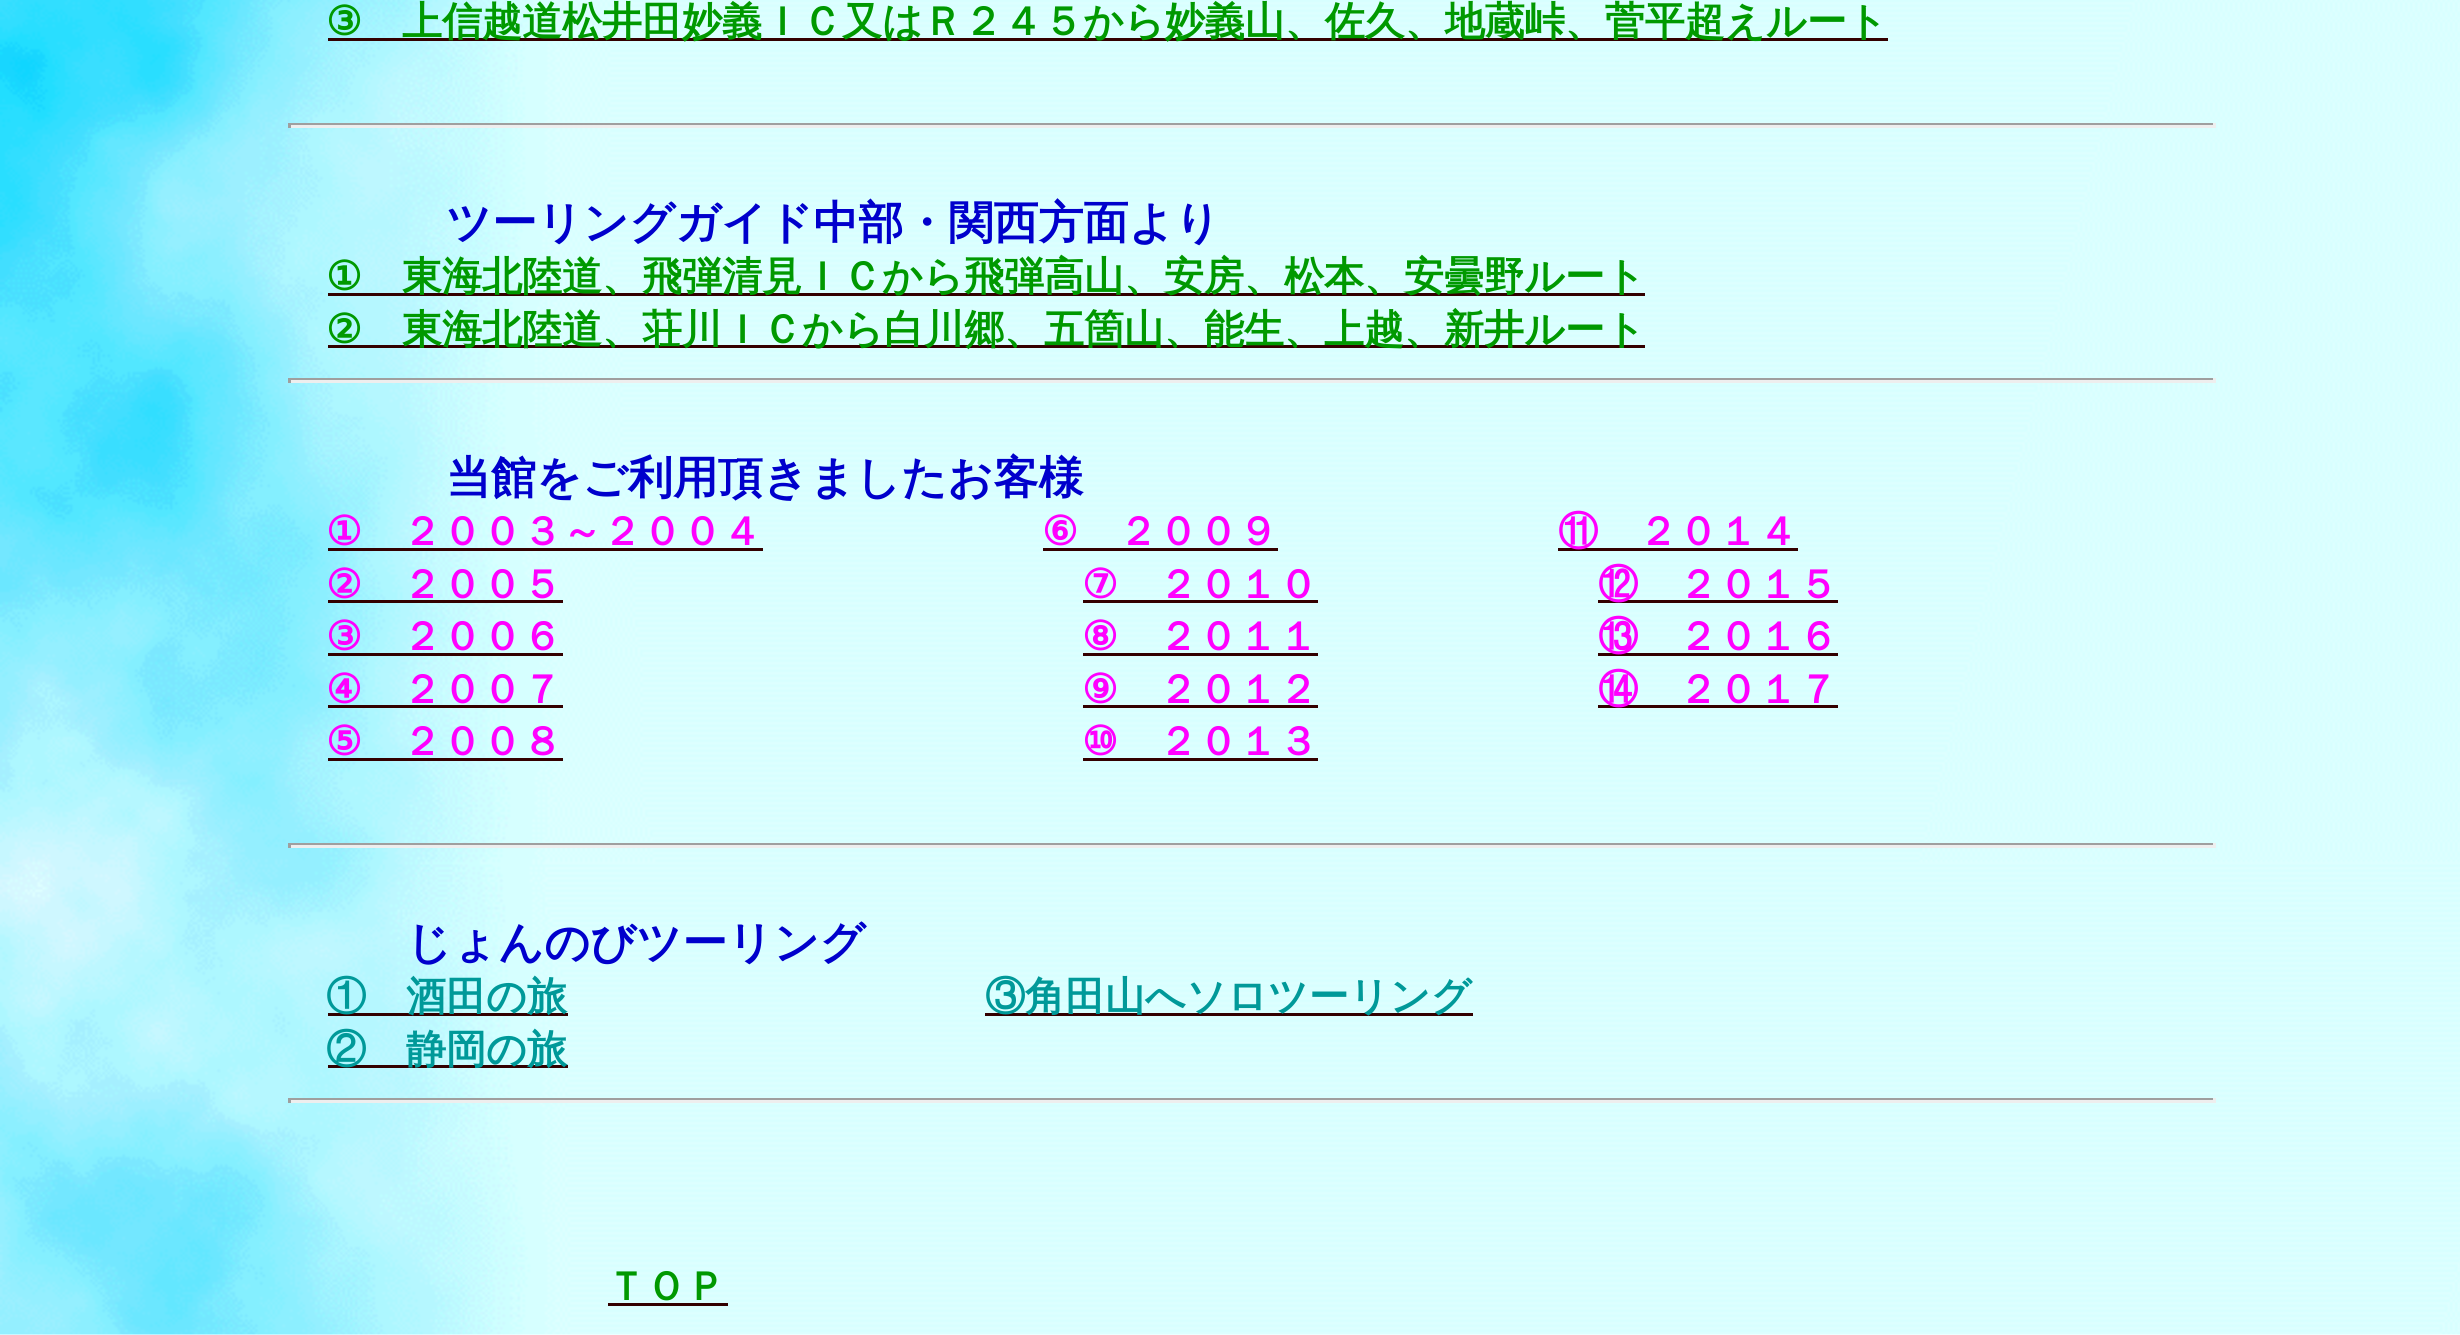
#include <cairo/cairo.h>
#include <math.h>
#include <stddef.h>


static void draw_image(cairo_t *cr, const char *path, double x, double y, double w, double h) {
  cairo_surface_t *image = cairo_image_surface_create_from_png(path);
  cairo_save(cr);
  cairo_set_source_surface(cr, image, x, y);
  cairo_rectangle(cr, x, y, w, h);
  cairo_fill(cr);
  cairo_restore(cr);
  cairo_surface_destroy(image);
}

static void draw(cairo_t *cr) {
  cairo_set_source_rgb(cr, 1, 1, 1);
  cairo_paint(cr);
  draw_image(cr, "images/1.png", 0, 0, 2460, 1335);
  cairo_set_source_rgb(cr, 51 / 255.0, 0, 0);
  cairo_rectangle(cr, 328, 38, 1560, 3);
  cairo_fill(cr);
  cairo_set_source_rgb(cr, 159 / 255.0, 159 / 255.0, 159 / 255.0);
  cairo_rectangle(cr, 288, 123, 1927, 2);
  cairo_fill(cr);
  cairo_set_source_rgb(cr, 238 / 255.0, 238 / 255.0, 238 / 255.0);
  cairo_rectangle(cr, 2213, 123, 3, 5);
  cairo_fill(cr);
  cairo_rectangle(cr, 288, 125, 1927, 3);
  cairo_fill(cr);
  cairo_set_source_rgb(cr, 159 / 255.0, 159 / 255.0, 159 / 255.0);
  cairo_rectangle(cr, 288, 123, 3, 5);
  cairo_fill(cr);
  cairo_set_source_rgb(cr, 51 / 255.0, 0, 0);
  cairo_rectangle(cr, 328, 293, 1317, 3);
  cairo_fill(cr);
  cairo_rectangle(cr, 328, 345, 1317, 3);
  cairo_fill(cr);
  cairo_set_source_rgb(cr, 159 / 255.0, 159 / 255.0, 159 / 255.0);
  cairo_rectangle(cr, 288, 378, 1927, 2);
  cairo_fill(cr);
  cairo_set_source_rgb(cr, 238 / 255.0, 238 / 255.0, 238 / 255.0);
  cairo_rectangle(cr, 2213, 378, 3, 5);
  cairo_fill(cr);
  cairo_rectangle(cr, 288, 380, 1927, 3);
  cairo_fill(cr);
  cairo_set_source_rgb(cr, 159 / 255.0, 159 / 255.0, 159 / 255.0);
  cairo_rectangle(cr, 288, 378, 3, 5);
  cairo_fill(cr);
  cairo_set_source_rgb(cr, 51 / 255.0, 0, 0);
  cairo_rectangle(cr, 328, 548, 435, 3);
  cairo_fill(cr);
  cairo_rectangle(cr, 1043, 548, 235, 3);
  cairo_fill(cr);
  cairo_rectangle(cr, 1558, 548, 240, 3);
  cairo_fill(cr);
  cairo_rectangle(cr, 328, 600, 235, 3);
  cairo_fill(cr);
  cairo_rectangle(cr, 1083, 600, 235, 3);
  cairo_fill(cr);
  cairo_rectangle(cr, 1598, 600, 240, 3);
  cairo_fill(cr);
  cairo_rectangle(cr, 328, 653, 235, 3);
  cairo_fill(cr);
  cairo_rectangle(cr, 1083, 653, 235, 3);
  cairo_fill(cr);
  cairo_rectangle(cr, 1598, 653, 240, 3);
  cairo_fill(cr);
  cairo_rectangle(cr, 328, 705, 235, 3);
  cairo_fill(cr);
  cairo_rectangle(cr, 1083, 705, 235, 3);
  cairo_fill(cr);
  cairo_rectangle(cr, 1598, 705, 240, 3);
  cairo_fill(cr);
  cairo_rectangle(cr, 328, 758, 235, 3);
  cairo_fill(cr);
  cairo_rectangle(cr, 1083, 758, 235, 3);
  cairo_fill(cr);
  cairo_set_source_rgb(cr, 159 / 255.0, 159 / 255.0, 159 / 255.0);
  cairo_rectangle(cr, 288, 843, 1927, 2);
  cairo_fill(cr);
  cairo_set_source_rgb(cr, 238 / 255.0, 238 / 255.0, 238 / 255.0);
  cairo_rectangle(cr, 2213, 843, 3, 5);
  cairo_fill(cr);
  cairo_rectangle(cr, 288, 845, 1927, 3);
  cairo_fill(cr);
  cairo_set_source_rgb(cr, 159 / 255.0, 159 / 255.0, 159 / 255.0);
  cairo_rectangle(cr, 288, 843, 3, 5);
  cairo_fill(cr);
  cairo_set_source_rgb(cr, 51 / 255.0, 0, 0);
  cairo_rectangle(cr, 328, 1013, 240, 3);
  cairo_fill(cr);
  cairo_rectangle(cr, 328, 1065, 240, 3);
  cairo_fill(cr);
  cairo_rectangle(cr, 985, 1013, 488, 3);
  cairo_fill(cr);
  cairo_set_source_rgb(cr, 159 / 255.0, 159 / 255.0, 159 / 255.0);
  cairo_rectangle(cr, 288, 1098, 1927, 2);
  cairo_fill(cr);
  cairo_set_source_rgb(cr, 238 / 255.0, 238 / 255.0, 238 / 255.0);
  cairo_rectangle(cr, 2213, 1098, 3, 5);
  cairo_fill(cr);
  cairo_rectangle(cr, 288, 1100, 1927, 3);
  cairo_fill(cr);
  cairo_set_source_rgb(cr, 159 / 255.0, 159 / 255.0, 159 / 255.0);
  cairo_rectangle(cr, 288, 1098, 3, 5);
  cairo_fill(cr);
  cairo_set_source_rgb(cr, 51 / 255.0, 0, 0);
  cairo_rectangle(cr, 608, 1303, 120, 3);
  cairo_fill(cr);
  cairo_select_font_face(cr, "DejaVu Sans", CAIRO_FONT_SLANT_NORMAL, CAIRO_FONT_WEIGHT_BOLD);
  cairo_set_font_size(cr, 40);
  cairo_set_source_rgb(cr, 0, 153 / 255.0, 0);
  cairo_move_to(cr, 326, 35);
  cairo_show_text(cr, "③");
  cairo_select_font_face(cr, "WenQuanYi Zen Hei", CAIRO_FONT_SLANT_NORMAL, CAIRO_FONT_WEIGHT_BOLD);
  cairo_move_to(cr, 402, 35);
  cairo_show_text(cr, "上信越道松井田妙義ＩＣ又はＲ２４５から妙義山、佐久、地蔵峠、菅平超えルート");
  cairo_set_font_size(cr, 45);
  cairo_set_source_rgb(cr, 0, 0, 204 / 255.0);
  cairo_move_to(cr, 446, 238);
  cairo_show_text(cr, "ツーリングガイド中部・関西方面より");
  cairo_select_font_face(cr, "DejaVu Sans", CAIRO_FONT_SLANT_NORMAL, CAIRO_FONT_WEIGHT_BOLD);
  cairo_set_font_size(cr, 40);
  cairo_set_source_rgb(cr, 0, 153 / 255.0, 0);
  cairo_move_to(cr, 326, 290);
  cairo_show_text(cr, "①");
  cairo_select_font_face(cr, "WenQuanYi Zen Hei", CAIRO_FONT_SLANT_NORMAL, CAIRO_FONT_WEIGHT_BOLD);
  cairo_move_to(cr, 402, 290);
  cairo_show_text(cr, "東海北陸道、飛弾清見ＩＣから飛弾高山、安房、松本、安曇野ルート");
  cairo_select_font_face(cr, "DejaVu Sans", CAIRO_FONT_SLANT_NORMAL, CAIRO_FONT_WEIGHT_BOLD);
  cairo_move_to(cr, 326, 343);
  cairo_show_text(cr, "②");
  cairo_select_font_face(cr, "WenQuanYi Zen Hei", CAIRO_FONT_SLANT_NORMAL, CAIRO_FONT_WEIGHT_BOLD);
  cairo_move_to(cr, 402, 343);
  cairo_show_text(cr, "東海北陸道、荘川ＩＣから白川郷、五箇山、能生、上越、新井ルート");
  cairo_set_font_size(cr, 45);
  cairo_set_source_rgb(cr, 0, 0, 204 / 255.0);
  cairo_move_to(cr, 446, 493);
  cairo_show_text(cr, "当館をご利用頂きましたお客様");
  cairo_select_font_face(cr, "DejaVu Sans", CAIRO_FONT_SLANT_NORMAL, CAIRO_FONT_WEIGHT_BOLD);
  cairo_set_font_size(cr, 40);
  cairo_set_source_rgb(cr, 1, 0, 1);
  cairo_move_to(cr, 326, 545);
  cairo_show_text(cr, "①");
  cairo_select_font_face(cr, "WenQuanYi Zen Hei", CAIRO_FONT_SLANT_NORMAL, CAIRO_FONT_WEIGHT_BOLD);
  cairo_move_to(cr, 402, 545);
  cairo_show_text(cr, "２００３～２００４");
  cairo_select_font_face(cr, "DejaVu Sans", CAIRO_FONT_SLANT_NORMAL, CAIRO_FONT_WEIGHT_BOLD);
  cairo_move_to(cr, 1042, 545);
  cairo_show_text(cr, "⑥");
  cairo_select_font_face(cr, "WenQuanYi Zen Hei", CAIRO_FONT_SLANT_NORMAL, CAIRO_FONT_WEIGHT_BOLD);
  cairo_move_to(cr, 1118, 545);
  cairo_show_text(cr, "２００９");
  cairo_move_to(cr, 1558, 545);
  cairo_show_text(cr, "⑪　２０１４");
  cairo_select_font_face(cr, "DejaVu Sans", CAIRO_FONT_SLANT_NORMAL, CAIRO_FONT_WEIGHT_BOLD);
  cairo_move_to(cr, 326, 598);
  cairo_show_text(cr, "②");
  cairo_select_font_face(cr, "WenQuanYi Zen Hei", CAIRO_FONT_SLANT_NORMAL, CAIRO_FONT_WEIGHT_BOLD);
  cairo_move_to(cr, 402, 598);
  cairo_show_text(cr, "２００５");
  cairo_select_font_face(cr, "DejaVu Sans", CAIRO_FONT_SLANT_NORMAL, CAIRO_FONT_WEIGHT_BOLD);
  cairo_move_to(cr, 1082, 598);
  cairo_show_text(cr, "⑦");
  cairo_select_font_face(cr, "WenQuanYi Zen Hei", CAIRO_FONT_SLANT_NORMAL, CAIRO_FONT_WEIGHT_BOLD);
  cairo_move_to(cr, 1158, 598);
  cairo_show_text(cr, "２０１０");
  cairo_move_to(cr, 1598, 598);
  cairo_show_text(cr, "⑫　２０１５");
  cairo_select_font_face(cr, "DejaVu Sans", CAIRO_FONT_SLANT_NORMAL, CAIRO_FONT_WEIGHT_BOLD);
  cairo_move_to(cr, 326, 650);
  cairo_show_text(cr, "③");
  cairo_select_font_face(cr, "WenQuanYi Zen Hei", CAIRO_FONT_SLANT_NORMAL, CAIRO_FONT_WEIGHT_BOLD);
  cairo_move_to(cr, 402, 650);
  cairo_show_text(cr, "２００６");
  cairo_select_font_face(cr, "DejaVu Sans", CAIRO_FONT_SLANT_NORMAL, CAIRO_FONT_WEIGHT_BOLD);
  cairo_move_to(cr, 1082, 650);
  cairo_show_text(cr, "⑧");
  cairo_select_font_face(cr, "WenQuanYi Zen Hei", CAIRO_FONT_SLANT_NORMAL, CAIRO_FONT_WEIGHT_BOLD);
  cairo_move_to(cr, 1158, 650);
  cairo_show_text(cr, "２０１１");
  cairo_move_to(cr, 1598, 650);
  cairo_show_text(cr, "⑬　２０１６");
  cairo_select_font_face(cr, "DejaVu Sans", CAIRO_FONT_SLANT_NORMAL, CAIRO_FONT_WEIGHT_BOLD);
  cairo_move_to(cr, 326, 703);
  cairo_show_text(cr, "④");
  cairo_select_font_face(cr, "WenQuanYi Zen Hei", CAIRO_FONT_SLANT_NORMAL, CAIRO_FONT_WEIGHT_BOLD);
  cairo_move_to(cr, 402, 703);
  cairo_show_text(cr, "２００７");
  cairo_select_font_face(cr, "DejaVu Sans", CAIRO_FONT_SLANT_NORMAL, CAIRO_FONT_WEIGHT_BOLD);
  cairo_move_to(cr, 1082, 703);
  cairo_show_text(cr, "⑨");
  cairo_select_font_face(cr, "WenQuanYi Zen Hei", CAIRO_FONT_SLANT_NORMAL, CAIRO_FONT_WEIGHT_BOLD);
  cairo_move_to(cr, 1158, 703);
  cairo_show_text(cr, "２０１２");
  cairo_move_to(cr, 1598, 703);
  cairo_show_text(cr, "⑭　２０１７");
  cairo_select_font_face(cr, "DejaVu Sans", CAIRO_FONT_SLANT_NORMAL, CAIRO_FONT_WEIGHT_BOLD);
  cairo_move_to(cr, 326, 755);
  cairo_show_text(cr, "⑤");
  cairo_select_font_face(cr, "WenQuanYi Zen Hei", CAIRO_FONT_SLANT_NORMAL, CAIRO_FONT_WEIGHT_BOLD);
  cairo_move_to(cr, 402, 755);
  cairo_show_text(cr, "２００８");
  cairo_select_font_face(cr, "DejaVu Sans", CAIRO_FONT_SLANT_NORMAL, CAIRO_FONT_WEIGHT_BOLD);
  cairo_move_to(cr, 1082, 755);
  cairo_show_text(cr, "⑩");
  cairo_select_font_face(cr, "WenQuanYi Zen Hei", CAIRO_FONT_SLANT_NORMAL, CAIRO_FONT_WEIGHT_BOLD);
  cairo_move_to(cr, 1158, 755);
  cairo_show_text(cr, "２０１３");
  cairo_set_font_size(cr, 45);
  cairo_set_source_rgb(cr, 0, 0, 204 / 255.0);
  cairo_move_to(cr, 406, 958);
  cairo_show_text(cr, "じょんのびツーリング");
  cairo_set_font_size(cr, 40);
  cairo_set_source_rgb(cr, 0, 153 / 255.0, 153 / 255.0);
  cairo_move_to(cr, 326, 1010);
  cairo_show_text(cr, "①　酒田の旅");
  cairo_move_to(cr, 326, 1063);
  cairo_show_text(cr, "②　静岡の旅");
  cairo_move_to(cr, 985, 1010);
  cairo_show_text(cr, "③角田山へソロツーリング");
  cairo_set_source_rgb(cr, 0, 153 / 255.0, 0);
  cairo_move_to(cr, 606, 1300);
  cairo_show_text(cr, "ＴＯＰ");
}

int main(void) {
  cairo_surface_t *surface = cairo_image_surface_create(CAIRO_FORMAT_RGB24, 2460, 1335);
  cairo_t *cr = cairo_create(surface);
  cairo_font_options_t *options = cairo_font_options_create();
  cairo_font_options_set_hint_metrics(options, CAIRO_HINT_METRICS_OFF);
  cairo_font_options_set_hint_style(options, CAIRO_HINT_STYLE_NONE);
  cairo_set_font_options(cr, options);
  cairo_set_miter_limit(cr, 4);
  draw(cr);
  cairo_surface_write_to_png(surface, "out.png");
  cairo_font_options_destroy(options);
  cairo_destroy(cr);
  cairo_surface_destroy(surface);
  return 0;
}
